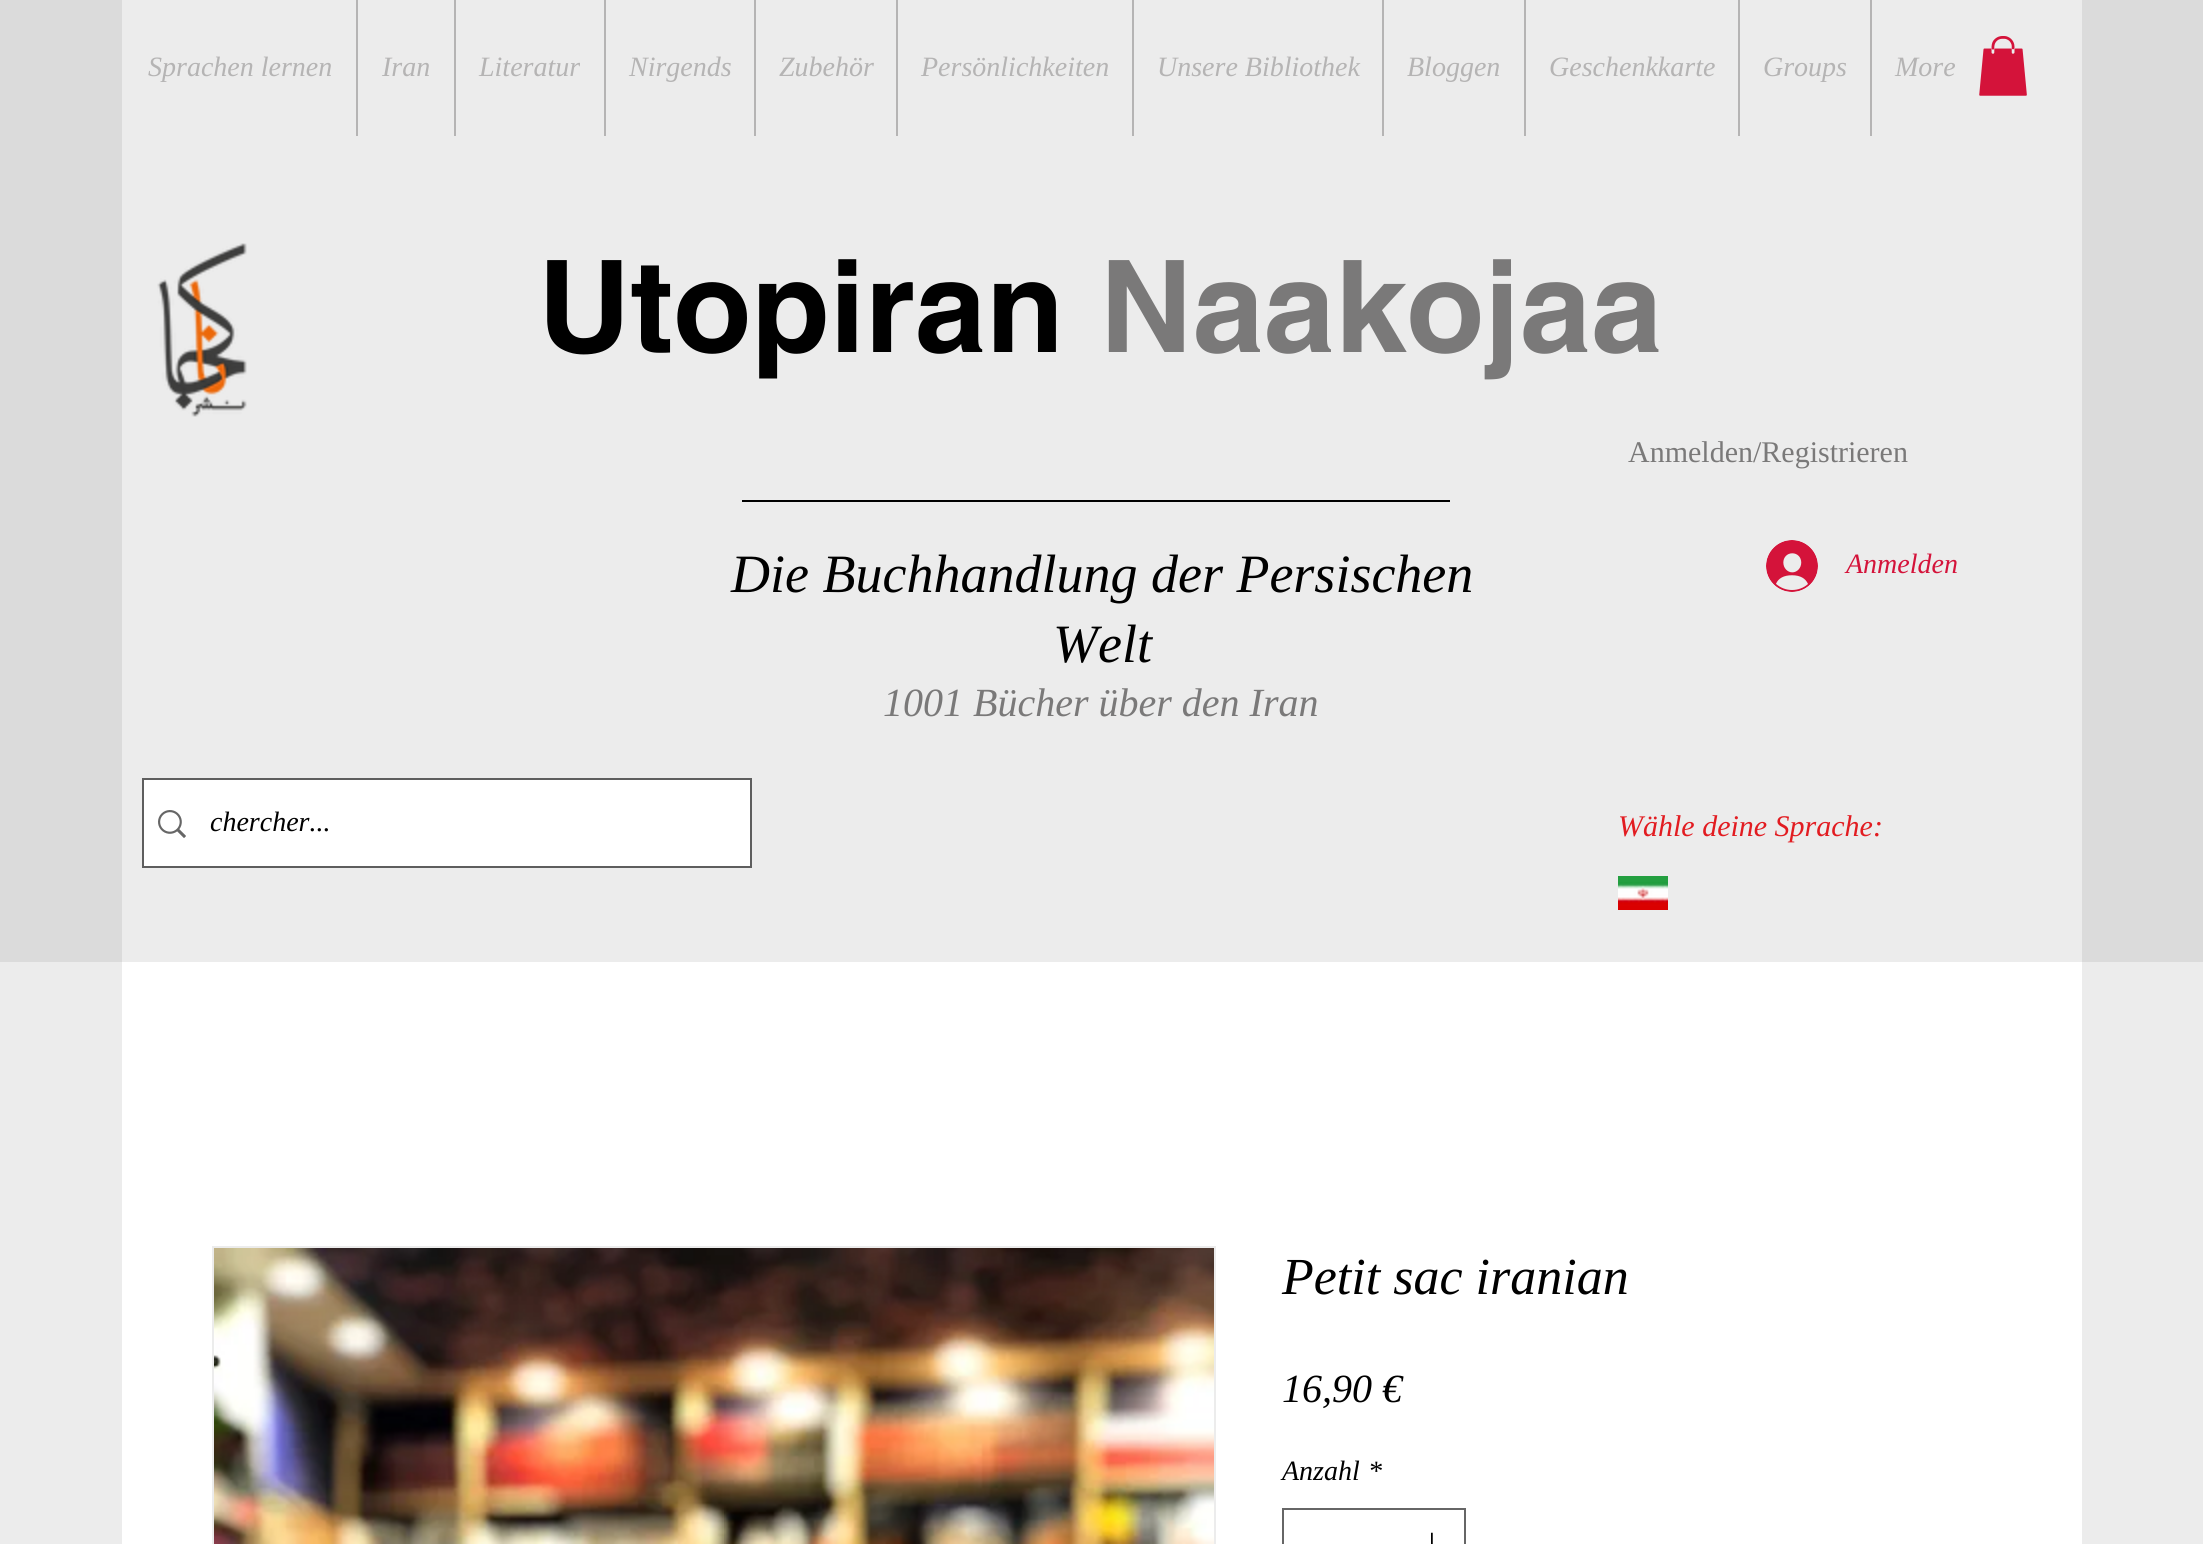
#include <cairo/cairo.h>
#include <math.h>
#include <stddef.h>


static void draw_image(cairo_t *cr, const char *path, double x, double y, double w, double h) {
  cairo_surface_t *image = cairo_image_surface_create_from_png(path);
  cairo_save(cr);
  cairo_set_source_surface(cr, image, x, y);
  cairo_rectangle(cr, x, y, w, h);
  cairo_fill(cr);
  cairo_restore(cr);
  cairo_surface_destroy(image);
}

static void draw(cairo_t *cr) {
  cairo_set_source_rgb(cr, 236 / 255.0, 236 / 255.0, 236 / 255.0);
  cairo_paint(cr);
  cairo_set_source_rgb(cr, 219 / 255.0, 219 / 255.0, 219 / 255.0);
  cairo_rectangle(cr, 0, 0, 2203, 962);
  cairo_fill(cr);
  cairo_set_source_rgb(cr, 236 / 255.0, 236 / 255.0, 236 / 255.0);
  cairo_rectangle(cr, 122, 0, 1960, 962);
  cairo_fill(cr);
  cairo_set_source_rgb(cr, 181 / 255.0, 180 / 255.0, 180 / 255.0);
  cairo_rectangle(cr, 356, 0, 2, 136);
  cairo_fill(cr);
  cairo_rectangle(cr, 454, 0, 2, 136);
  cairo_fill(cr);
  cairo_rectangle(cr, 604, 0, 2, 136);
  cairo_fill(cr);
  cairo_rectangle(cr, 754, 0, 2, 136);
  cairo_fill(cr);
  cairo_rectangle(cr, 896, 0, 2, 136);
  cairo_fill(cr);
  cairo_rectangle(cr, 1132, 0, 2, 136);
  cairo_fill(cr);
  cairo_rectangle(cr, 1382, 0, 2, 136);
  cairo_fill(cr);
  cairo_rectangle(cr, 1524, 0, 2, 136);
  cairo_fill(cr);
  cairo_rectangle(cr, 1738, 0, 2, 136);
  cairo_fill(cr);
  cairo_rectangle(cr, 1870, 0, 2, 136);
  cairo_fill(cr);
  draw_image(cr, "images/1.png", 1979, 36, 48, 60);
  draw_image(cr, "images/2.png", 157, 243, 90, 174);
  cairo_set_source_rgb(cr, 0, 0, 0);
  cairo_rectangle(cr, 742, 500, 708, 2);
  cairo_fill(cr);
  draw_image(cr, "images/3.png", 1766, 540, 52, 52);
  cairo_rectangle(cr, 143, 779, 608, 88);
  cairo_set_source_rgb(cr, 94 / 255.0, 94 / 255.0, 94 / 255.0);
  cairo_stroke(cr);
  cairo_set_source_rgb(cr, 1, 1, 1);
  cairo_rectangle(cr, 144, 780, 606, 86);
  cairo_fill(cr);
  draw_image(cr, "images/4.png", 158, 810, 28, 28);
  draw_image(cr, "images/5.png", 1618, 876, 50, 34);
  cairo_rectangle(cr, 122, 962, 1960, 582);
  cairo_fill(cr);
  cairo_rectangle(cr, 213, 1247, 1002, 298);
  cairo_set_source_rgb(cr, 236 / 255.0, 236 / 255.0, 236 / 255.0);
  cairo_stroke(cr);
  draw_image(cr, "images/6.png", 214, 1248, 1000, 296);
  cairo_rectangle(cr, 1283, 1509, 182, 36);
  cairo_set_source_rgb(cr, 102 / 255.0, 102 / 255.0, 102 / 255.0);
  cairo_stroke(cr);
  draw_image(cr, "images/7.png", 1431, 1532, 2, 12);
  cairo_select_font_face(cr, "Liberation Serif", CAIRO_FONT_SLANT_ITALIC, CAIRO_FONT_WEIGHT_NORMAL);
  cairo_set_font_size(cr, 28);
  cairo_set_source_rgb(cr, 181 / 255.0, 180 / 255.0, 180 / 255.0);
  cairo_move_to(cr, 148, 76);
  cairo_show_text(cr, "Sprachen lernen");
  cairo_move_to(cr, 382, 76);
  cairo_show_text(cr, "Iran");
  cairo_move_to(cr, 479, 76);
  cairo_show_text(cr, "Literatur");
  cairo_move_to(cr, 629, 76);
  cairo_show_text(cr, "Nirgends");
  cairo_move_to(cr, 779, 76);
  cairo_show_text(cr, "Zubehör");
  cairo_move_to(cr, 921, 76);
  cairo_show_text(cr, "Persönlichkeiten");
  cairo_move_to(cr, 1157, 76);
  cairo_show_text(cr, "Unsere Bibliothek");
  cairo_move_to(cr, 1407, 76);
  cairo_show_text(cr, "Bloggen");
  cairo_move_to(cr, 1549, 76);
  cairo_show_text(cr, "Geschenkkarte");
  cairo_move_to(cr, 1763, 76);
  cairo_show_text(cr, "Groups");
  cairo_move_to(cr, 1895, 76);
  cairo_show_text(cr, "More");
  cairo_select_font_face(cr, "helvetica", CAIRO_FONT_SLANT_NORMAL, CAIRO_FONT_WEIGHT_BOLD);
  cairo_set_font_size(cr, 128);
  cairo_set_source_rgb(cr, 0, 0, 0);
  cairo_move_to(cr, 538, 352);
  cairo_show_text(cr, "Utopiran");
  cairo_set_source_rgb(cr, 122 / 255.0, 121 / 255.0, 121 / 255.0);
  cairo_move_to(cr, 1100, 352);
  cairo_show_text(cr, "Naakojaa");
  cairo_select_font_face(cr, "Liberation Serif", CAIRO_FONT_SLANT_NORMAL, CAIRO_FONT_WEIGHT_NORMAL);
  cairo_set_font_size(cr, 30);
  cairo_move_to(cr, 1628, 462);
  cairo_show_text(cr, "Anmelden/Registrieren");
  cairo_select_font_face(cr, "Liberation Serif", CAIRO_FONT_SLANT_ITALIC, CAIRO_FONT_WEIGHT_NORMAL);
  cairo_set_font_size(cr, 54);
  cairo_set_source_rgb(cr, 0, 0, 0);
  cairo_move_to(cr, 731, 592);
  cairo_show_text(cr, "Die Buchhandlung der Persischen");
  cairo_move_to(cr, 1053, 662);
  cairo_show_text(cr, "Welt");
  cairo_set_font_size(cr, 28);
  cairo_set_source_rgb(cr, 212 / 255.0, 19 / 255.0, 58 / 255.0);
  cairo_move_to(cr, 1846, 573);
  cairo_show_text(cr, "Anmelden");
  cairo_set_font_size(cr, 40);
  cairo_set_source_rgb(cr, 122 / 255.0, 121 / 255.0, 121 / 255.0);
  cairo_move_to(cr, 883, 716);
  cairo_show_text(cr, "1001 Bücher über den Iran");
  cairo_set_font_size(cr, 28);
  cairo_set_source_rgb(cr, 0, 0, 0);
  cairo_move_to(cr, 210, 831);
  cairo_show_text(cr, "chercher...");
  cairo_set_font_size(cr, 30);
  cairo_set_source_rgb(cr, 226 / 255.0, 28 / 255.0, 33 / 255.0);
  cairo_move_to(cr, 1618, 836);
  cairo_show_text(cr, "Wähle deine Sprache:");
  cairo_set_font_size(cr, 52);
  cairo_set_source_rgb(cr, 0, 0, 0);
  cairo_move_to(cr, 1282, 1294);
  cairo_show_text(cr, "Petit sac iranian");
  cairo_set_font_size(cr, 40);
  cairo_move_to(cr, 1282, 1402);
  cairo_show_text(cr, "16,90 €");
  cairo_set_font_size(cr, 28);
  cairo_move_to(cr, 1282, 1480);
  cairo_show_text(cr, "Anzahl");
  cairo_move_to(cr, 1368, 1480);
  cairo_show_text(cr, "*");
}

int main(void) {
  cairo_surface_t *surface = cairo_image_surface_create(CAIRO_FORMAT_RGB24, 2203, 1544);
  cairo_t *cr = cairo_create(surface);
  cairo_font_options_t *options = cairo_font_options_create();
  cairo_font_options_set_hint_metrics(options, CAIRO_HINT_METRICS_OFF);
  cairo_font_options_set_hint_style(options, CAIRO_HINT_STYLE_NONE);
  cairo_set_font_options(cr, options);
  cairo_set_miter_limit(cr, 4);
  draw(cr);
  cairo_surface_write_to_png(surface, "out.png");
  cairo_font_options_destroy(options);
  cairo_destroy(cr);
  cairo_surface_destroy(surface);
  return 0;
}
